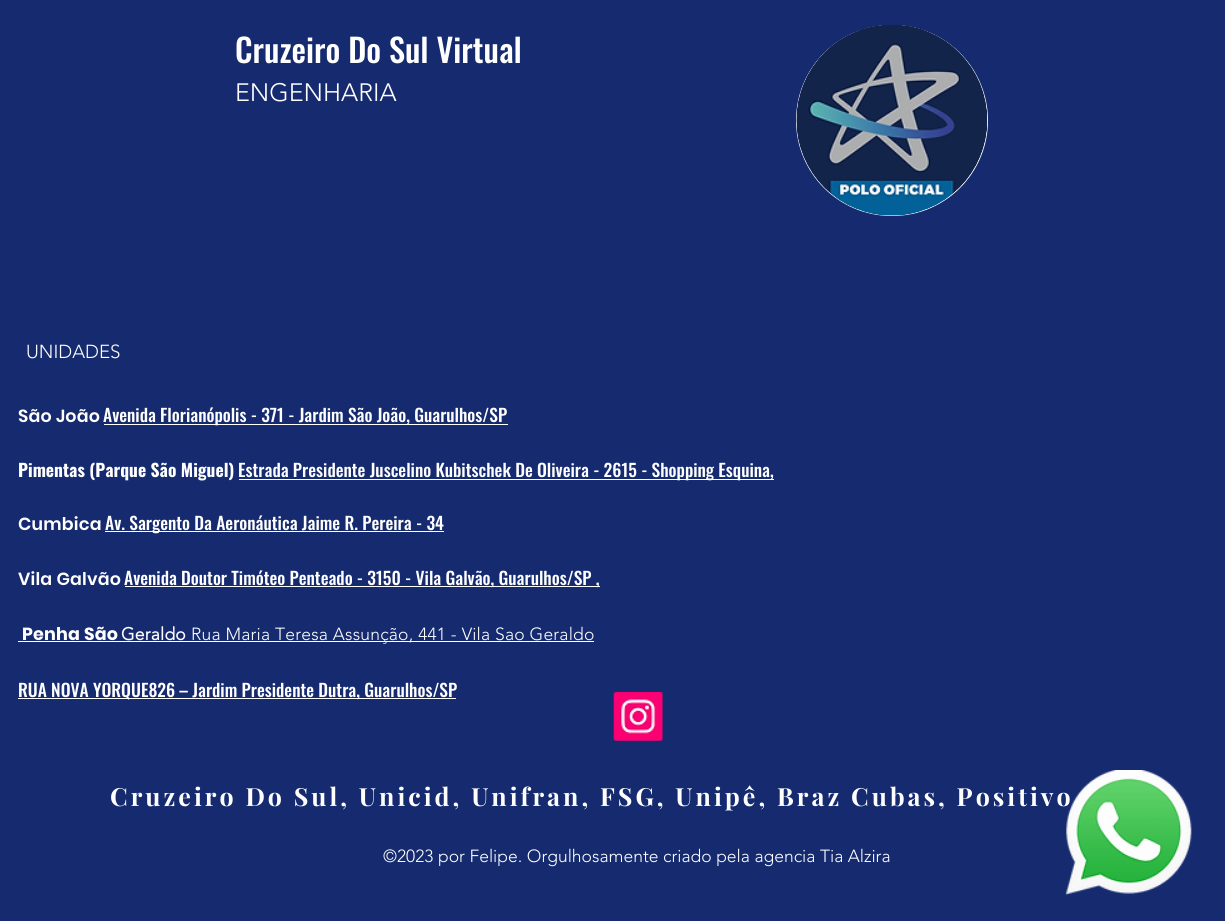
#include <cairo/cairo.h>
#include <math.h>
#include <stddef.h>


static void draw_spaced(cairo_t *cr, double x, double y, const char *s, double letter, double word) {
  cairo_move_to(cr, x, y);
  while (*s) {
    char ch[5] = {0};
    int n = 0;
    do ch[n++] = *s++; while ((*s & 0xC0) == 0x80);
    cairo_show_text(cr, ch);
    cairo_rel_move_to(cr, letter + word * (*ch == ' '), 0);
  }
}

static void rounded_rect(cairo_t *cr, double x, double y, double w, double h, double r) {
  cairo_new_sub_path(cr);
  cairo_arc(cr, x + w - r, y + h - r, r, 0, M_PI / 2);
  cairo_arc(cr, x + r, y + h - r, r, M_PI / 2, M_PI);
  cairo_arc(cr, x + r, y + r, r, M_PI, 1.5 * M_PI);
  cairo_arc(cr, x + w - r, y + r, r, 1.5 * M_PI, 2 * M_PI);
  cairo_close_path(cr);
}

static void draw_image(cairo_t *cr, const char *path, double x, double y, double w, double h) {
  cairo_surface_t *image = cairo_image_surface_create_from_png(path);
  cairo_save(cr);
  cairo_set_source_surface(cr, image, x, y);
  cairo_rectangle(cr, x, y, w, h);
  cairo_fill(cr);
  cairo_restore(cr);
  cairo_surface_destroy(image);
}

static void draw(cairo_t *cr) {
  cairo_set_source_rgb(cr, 22 / 255.0, 43 / 255.0, 111 / 255.0);
  cairo_paint(cr);
  cairo_set_source_rgb(cr, 1, 1, 1);
  rounded_rect(cr, 796, 25, 192, 191, 95.5);
  cairo_fill(cr);
  draw_image(cr, "images/1.png", 796, 24, 192, 192);
  cairo_rectangle(cr, 104, 424, 404, 1);
  cairo_fill(cr);
  cairo_rectangle(cr, 239, 479, 535, 1);
  cairo_fill(cr);
  cairo_rectangle(cr, 105, 531, 339, 1);
  cairo_fill(cr);
  cairo_rectangle(cr, 125, 586, 475, 1);
  cairo_fill(cr);
  cairo_rectangle(cr, 18, 641, 576, 1);
  cairo_fill(cr);
  cairo_rectangle(cr, 18, 698, 438, 1);
  cairo_fill(cr);
  draw_image(cr, "images/2.png", 613, 692, 50, 49);
  cairo_select_font_face(cr, "Oswald Medium", CAIRO_FONT_SLANT_NORMAL, CAIRO_FONT_WEIGHT_NORMAL);
  cairo_set_font_size(cr, 32.5);
  cairo_move_to(cr, 235, 63);
  cairo_show_text(cr, "Cruzeiro Do Sul Virtual");
  cairo_select_font_face(cr, "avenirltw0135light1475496 Light", CAIRO_FONT_SLANT_NORMAL, CAIRO_FONT_WEIGHT_NORMAL);
  cairo_set_font_size(cr, 25);
  cairo_move_to(cr, 235, 101);
  cairo_show_text(cr, "ENGENHARIA");
  cairo_set_font_size(cr, 18.75);
  cairo_move_to(cr, 26, 358);
  cairo_show_text(cr, "UNIDADES");
  cairo_select_font_face(cr, "Poppins SemiBold", CAIRO_FONT_SLANT_NORMAL, CAIRO_FONT_WEIGHT_NORMAL);
  cairo_set_font_size(cr, 17.5);
  draw_spaced(cr, 18, 422, "São João", 0.2, 0);
  cairo_select_font_face(cr, "Oswald Medium", CAIRO_FONT_SLANT_NORMAL, CAIRO_FONT_WEIGHT_NORMAL);
  cairo_move_to(cr, 103, 422);
  cairo_show_text(cr, "Avenida Florianópolis - 371 - Jardim São João, Guarulhos/SP");
  cairo_select_font_face(cr, "Oswald", CAIRO_FONT_SLANT_NORMAL, CAIRO_FONT_WEIGHT_BOLD);
  cairo_move_to(cr, 18, 477);
  cairo_show_text(cr, "Pimentas (Parque São Miguel)");
  cairo_select_font_face(cr, "Oswald Medium", CAIRO_FONT_SLANT_NORMAL, CAIRO_FONT_WEIGHT_NORMAL);
  cairo_move_to(cr, 238, 477);
  cairo_show_text(cr, "Estrada Presidente Juscelino Kubitschek De Oliveira - 2615 - Shopping Esquina,");
  cairo_select_font_face(cr, "Poppins SemiBold", CAIRO_FONT_SLANT_NORMAL, CAIRO_FONT_WEIGHT_NORMAL);
  draw_spaced(cr, 18, 530, "Cumbica", 0.2, 0);
  cairo_select_font_face(cr, "Oswald Medium", CAIRO_FONT_SLANT_NORMAL, CAIRO_FONT_WEIGHT_NORMAL);
  cairo_move_to(cr, 105, 530);
  cairo_show_text(cr, "Av. Sargento Da Aeronáutica Jaime R. Pereira - 34");
  cairo_select_font_face(cr, "Poppins SemiBold", CAIRO_FONT_SLANT_NORMAL, CAIRO_FONT_WEIGHT_NORMAL);
  draw_spaced(cr, 18, 585, "Vila Galvão", 0.2, 0);
  cairo_select_font_face(cr, "Oswald Medium", CAIRO_FONT_SLANT_NORMAL, CAIRO_FONT_WEIGHT_NORMAL);
  cairo_move_to(cr, 124, 585);
  cairo_show_text(cr, "Avenida Doutor Timóteo Penteado - 3150 - Vila Galvão, Guarulhos/SP ,");
  cairo_select_font_face(cr, "Poppins", CAIRO_FONT_SLANT_NORMAL, CAIRO_FONT_WEIGHT_BOLD);
  draw_spaced(cr, 22, 640, "Penha São", 0.2, 0);
  cairo_select_font_face(cr, "avenirltw0135light1475496", CAIRO_FONT_SLANT_NORMAL, CAIRO_FONT_WEIGHT_BOLD);
  draw_spaced(cr, 121, 640, "Geraldo", 0.2, 0);
  cairo_select_font_face(cr, "avenirltw0135light1475496 Light", CAIRO_FONT_SLANT_NORMAL, CAIRO_FONT_WEIGHT_NORMAL);
  draw_spaced(cr, 191, 640, "Rua Maria Teresa Assunção, 441 - Vila Sao Geraldo", 0.2, 0);
  cairo_select_font_face(cr, "Oswald Medium", CAIRO_FONT_SLANT_NORMAL, CAIRO_FONT_WEIGHT_NORMAL);
  cairo_move_to(cr, 18, 697);
  cairo_show_text(cr, "RUA NOVA YORQUE826 – Jardim Presidente Dutra, Guarulhos/SP");
  cairo_select_font_face(cr, "Playfair Display", CAIRO_FONT_SLANT_NORMAL, CAIRO_FONT_WEIGHT_BOLD);
  cairo_set_font_size(cr, 25);
  draw_spaced(cr, 110, 806, "Cruzeiro Do Sul, Unicid, Unifran, FSG, Unipê, Braz Cubas, Positivo", 3, 0);
  cairo_select_font_face(cr, "avenirltw0135light1475496 Light", CAIRO_FONT_SLANT_NORMAL, CAIRO_FONT_WEIGHT_NORMAL);
  cairo_set_font_size(cr, 17.5);
  cairo_move_to(cr, 383, 862);
  cairo_show_text(cr, "©2023 por Felipe. Orgulhosamente criado pela agencia Tia Alzira");
  draw_image(cr, "images/3.png", 1065, 770, 127, 126);
}

int main(void) {
  cairo_surface_t *surface = cairo_image_surface_create(CAIRO_FORMAT_RGB24, 1225, 921);
  cairo_t *cr = cairo_create(surface);
  cairo_font_options_t *options = cairo_font_options_create();
  cairo_font_options_set_hint_metrics(options, CAIRO_HINT_METRICS_OFF);
  cairo_font_options_set_hint_style(options, CAIRO_HINT_STYLE_NONE);
  cairo_set_font_options(cr, options);
  cairo_set_miter_limit(cr, 4);
  draw(cr);
  cairo_surface_write_to_png(surface, "out.png");
  cairo_font_options_destroy(options);
  cairo_destroy(cr);
  cairo_surface_destroy(surface);
  return 0;
}
